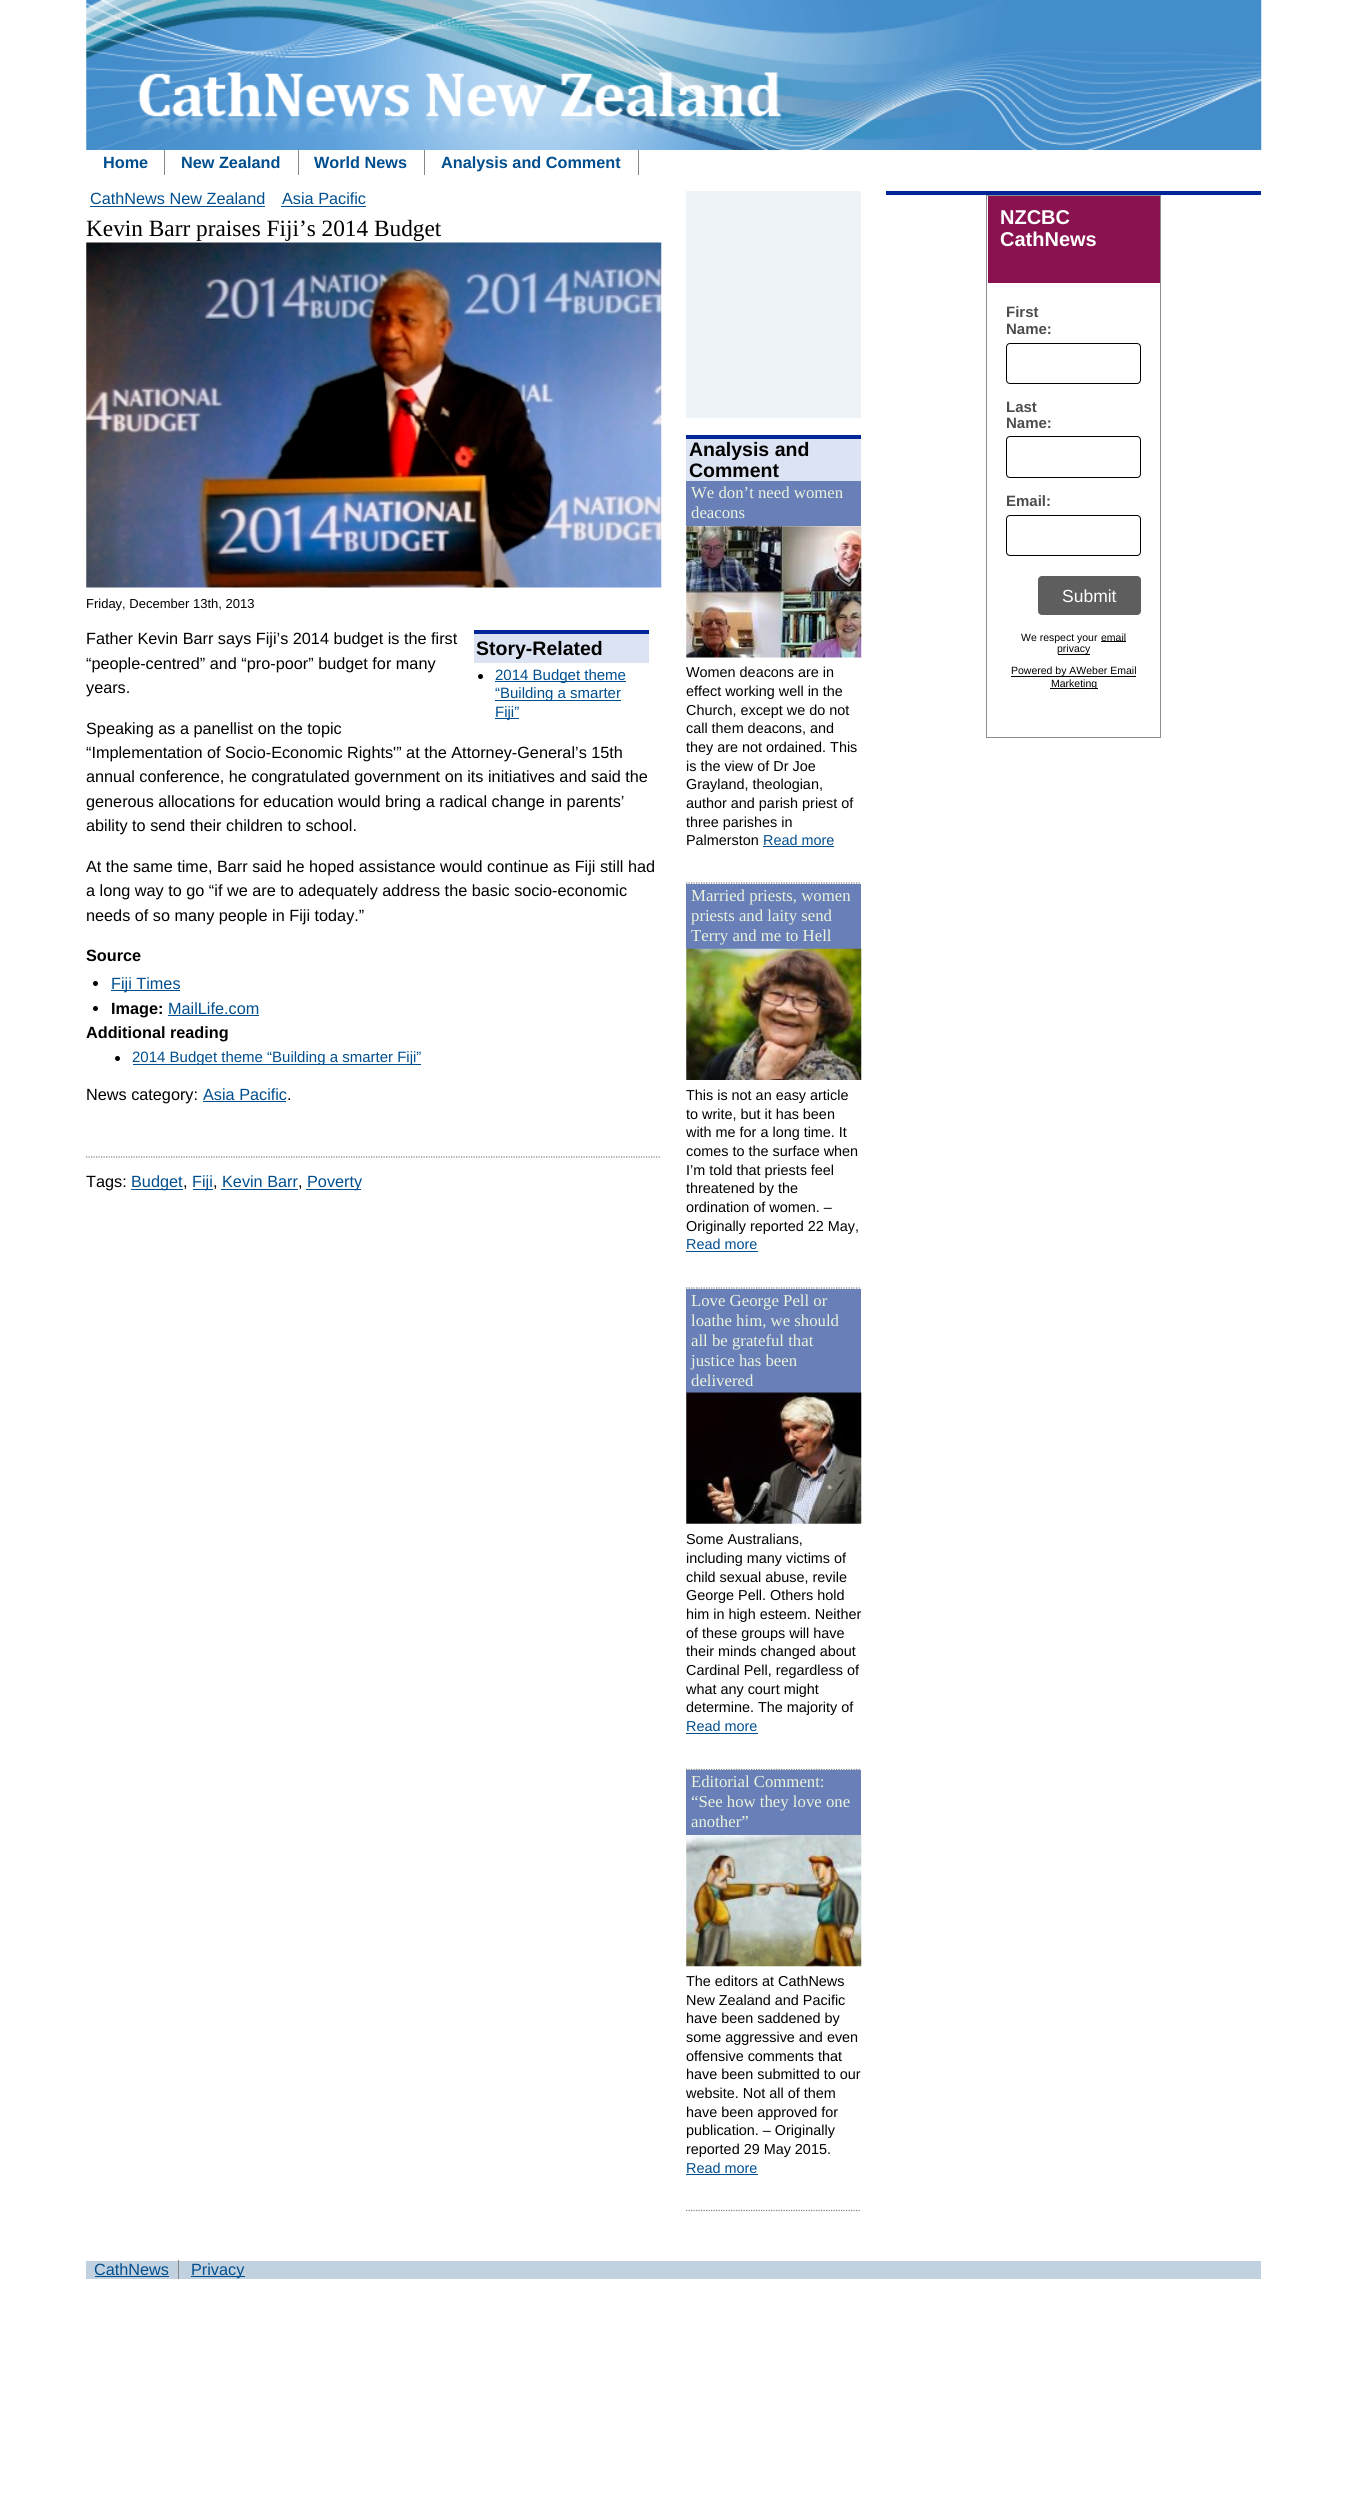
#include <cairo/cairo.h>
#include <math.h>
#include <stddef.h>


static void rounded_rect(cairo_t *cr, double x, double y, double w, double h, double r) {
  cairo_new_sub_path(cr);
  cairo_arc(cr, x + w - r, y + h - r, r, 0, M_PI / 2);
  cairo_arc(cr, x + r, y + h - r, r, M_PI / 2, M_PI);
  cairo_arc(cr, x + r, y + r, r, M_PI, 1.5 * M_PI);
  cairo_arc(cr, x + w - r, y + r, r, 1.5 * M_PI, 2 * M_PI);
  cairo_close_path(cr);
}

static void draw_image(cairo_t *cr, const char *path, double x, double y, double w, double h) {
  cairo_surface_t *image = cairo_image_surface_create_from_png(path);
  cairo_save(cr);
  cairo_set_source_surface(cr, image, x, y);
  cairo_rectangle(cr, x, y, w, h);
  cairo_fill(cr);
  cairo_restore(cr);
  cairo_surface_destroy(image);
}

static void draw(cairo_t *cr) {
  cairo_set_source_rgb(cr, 1, 1, 1);
  cairo_paint(cr);
  draw_image(cr, "images/1.png", 86, 0, 1176, 150);
  cairo_set_source_rgb(cr, 136 / 255.0, 136 / 255.0, 136 / 255.0);
  cairo_rectangle(cr, 164, 150, 1, 25);
  cairo_fill(cr);
  cairo_rectangle(cr, 298, 150, 1, 25);
  cairo_fill(cr);
  cairo_rectangle(cr, 424, 150, 1, 25);
  cairo_fill(cr);
  cairo_rectangle(cr, 638, 150, 1, 25);
  cairo_fill(cr);
  cairo_set_source_rgb(cr, 0, 78 / 255.0, 142 / 255.0);
  cairo_rectangle(cr, 90, 206, 175, 1);
  cairo_fill(cr);
  cairo_rectangle(cr, 281, 206, 85, 1);
  cairo_fill(cr);
  cairo_new_path(cr);
  cairo_move_to(cr, 86, 1157);
  cairo_line_to(cr, 661, 1157);
  cairo_set_source_rgb(cr, 128 / 255.0, 128 / 255.0, 128 / 255.0);
  cairo_set_line_width(cr, 1.2);
  cairo_set_dash(cr, (double[]){1.25, 1.25}, 2, 0);
  cairo_stroke(cr);
  draw_image(cr, "images/2.png", 86, 242, 576, 346);
  cairo_set_source_rgb(cr, 0, 38 / 255.0, 153 / 255.0);
  cairo_rectangle(cr, 474, 630, 175, 4);
  cairo_fill(cr);
  cairo_set_source_rgb(cr, 220 / 255.0, 227 / 255.0, 242 / 255.0);
  cairo_rectangle(cr, 474, 634, 175, 29);
  cairo_fill(cr);
  cairo_set_source_rgb(cr, 0, 0, 0);
  cairo_arc(cr, 480.5, 676.5, 2.5, 0, 2 * M_PI);
  cairo_fill(cr);
  cairo_set_source_rgb(cr, 0, 78 / 255.0, 142 / 255.0);
  cairo_rectangle(cr, 495, 681, 131, 1);
  cairo_fill(cr);
  cairo_rectangle(cr, 495, 700, 126, 1);
  cairo_fill(cr);
  cairo_rectangle(cr, 495, 718, 24, 1);
  cairo_fill(cr);
  cairo_set_source_rgb(cr, 0, 0, 0);
  cairo_arc(cr, 95.5, 983.5, 2.5, 0, 2 * M_PI);
  cairo_fill(cr);
  cairo_set_source_rgb(cr, 0, 78 / 255.0, 142 / 255.0);
  cairo_rectangle(cr, 111, 990, 69, 1);
  cairo_fill(cr);
  cairo_set_source_rgb(cr, 0, 0, 0);
  cairo_arc(cr, 95.5, 1008.5, 2.5, 0, 2 * M_PI);
  cairo_fill(cr);
  cairo_set_source_rgb(cr, 0, 78 / 255.0, 142 / 255.0);
  cairo_rectangle(cr, 168, 1015, 91, 1);
  cairo_fill(cr);
  cairo_set_source_rgb(cr, 0, 0, 0);
  cairo_arc(cr, 117.5, 1058.5, 2.5, 0, 2 * M_PI);
  cairo_fill(cr);
  cairo_set_source_rgb(cr, 0, 78 / 255.0, 142 / 255.0);
  cairo_rectangle(cr, 133, 1064, 288, 1);
  cairo_fill(cr);
  cairo_rectangle(cr, 203, 1101, 83, 1);
  cairo_fill(cr);
  cairo_rectangle(cr, 131, 1189, 52, 1);
  cairo_fill(cr);
  cairo_rectangle(cr, 193, 1189, 20, 1);
  cairo_fill(cr);
  cairo_rectangle(cr, 221, 1189, 77, 1);
  cairo_fill(cr);
  cairo_rectangle(cr, 306, 1189, 55, 1);
  cairo_fill(cr);
  cairo_set_source_rgb(cr, 238 / 255.0, 243 / 255.0, 248 / 255.0);
  cairo_rectangle(cr, 686, 191, 175, 227);
  cairo_fill(cr);
  cairo_set_source_rgb(cr, 0, 38 / 255.0, 153 / 255.0);
  cairo_rectangle(cr, 686, 435, 175, 4);
  cairo_fill(cr);
  cairo_set_source_rgb(cr, 220 / 255.0, 227 / 255.0, 242 / 255.0);
  cairo_rectangle(cr, 686, 439, 175, 42);
  cairo_fill(cr);
  cairo_new_path(cr);
  cairo_move_to(cr, 686, 883);
  cairo_line_to(cr, 861, 883);
  cairo_set_source_rgb(cr, 128 / 255.0, 128 / 255.0, 128 / 255.0);
  cairo_stroke(cr);
  cairo_set_source_rgb(cr, 104 / 255.0, 127 / 255.0, 183 / 255.0);
  cairo_rectangle(cr, 686, 481, 175, 45);
  cairo_fill(cr);
  draw_image(cr, "images/3.png", 686, 526, 176, 132);
  cairo_set_source_rgb(cr, 0, 78 / 255.0, 142 / 255.0);
  cairo_rectangle(cr, 763, 846, 71, 1);
  cairo_fill(cr);
  cairo_new_path(cr);
  cairo_move_to(cr, 686, 1288);
  cairo_line_to(cr, 861, 1288);
  cairo_set_source_rgb(cr, 128 / 255.0, 128 / 255.0, 128 / 255.0);
  cairo_stroke(cr);
  cairo_set_source_rgb(cr, 104 / 255.0, 127 / 255.0, 183 / 255.0);
  cairo_rectangle(cr, 686, 884, 175, 65);
  cairo_fill(cr);
  draw_image(cr, "images/4.png", 686, 948, 176, 132);
  cairo_set_source_rgb(cr, 0, 78 / 255.0, 142 / 255.0);
  cairo_rectangle(cr, 686, 1251, 72, 1);
  cairo_fill(cr);
  cairo_new_path(cr);
  cairo_move_to(cr, 686, 1769.5);
  cairo_line_to(cr, 861, 1769.5);
  cairo_set_source_rgb(cr, 128 / 255.0, 128 / 255.0, 128 / 255.0);
  cairo_stroke(cr);
  cairo_set_source_rgb(cr, 104 / 255.0, 127 / 255.0, 183 / 255.0);
  cairo_rectangle(cr, 686, 1289, 175, 104);
  cairo_fill(cr);
  draw_image(cr, "images/5.png", 686, 1392, 176, 132);
  cairo_set_source_rgb(cr, 0, 78 / 255.0, 142 / 255.0);
  cairo_rectangle(cr, 686, 1733, 72, 1);
  cairo_fill(cr);
  cairo_new_path(cr);
  cairo_move_to(cr, 686, 2210.5);
  cairo_line_to(cr, 861, 2210.5);
  cairo_set_source_rgb(cr, 128 / 255.0, 128 / 255.0, 128 / 255.0);
  cairo_stroke(cr);
  cairo_set_source_rgb(cr, 104 / 255.0, 127 / 255.0, 183 / 255.0);
  cairo_rectangle(cr, 686, 1770, 175, 65);
  cairo_fill(cr);
  draw_image(cr, "images/6.png", 686, 1835, 176, 132);
  cairo_set_source_rgb(cr, 0, 78 / 255.0, 142 / 255.0);
  cairo_rectangle(cr, 686, 2174, 72, 1);
  cairo_fill(cr);
  cairo_set_source_rgb(cr, 0, 38 / 255.0, 153 / 255.0);
  cairo_rectangle(cr, 886, 191, 375, 4);
  cairo_fill(cr);
  cairo_rectangle(cr, 986.5, 195.5, 174, 542);
  cairo_set_source_rgb(cr, 140 / 255.0, 140 / 255.0, 140 / 255.0);
  cairo_set_line_width(cr, 1);
  cairo_set_dash(cr, NULL, 0, 0);
  cairo_stroke(cr);
  cairo_set_source_rgb(cr, 138 / 255.0, 18 / 255.0, 80 / 255.0);
  cairo_rectangle(cr, 988, 196, 172, 87);
  cairo_fill(cr);
  rounded_rect(cr, 1006.5, 343.5, 134, 40, 3.5);
  cairo_set_source_rgb(cr, 0, 0, 0);
  cairo_stroke(cr);
  rounded_rect(cr, 1006.5, 436.5, 134, 41, 3.5);
  cairo_stroke(cr);
  rounded_rect(cr, 1006.5, 515.5, 134, 40, 3.5);
  cairo_stroke(cr);
  cairo_set_source_rgb(cr, 94 / 255.0, 94 / 255.0, 94 / 255.0);
  rounded_rect(cr, 1038, 576, 103, 39, 4);
  cairo_fill(cr);
  cairo_set_source_rgb(cr, 0, 0, 0);
  cairo_rectangle(cr, 1101, 641, 25, 1);
  cairo_fill(cr);
  cairo_rectangle(cr, 1058, 654, 32, 1);
  cairo_fill(cr);
  cairo_rectangle(cr, 1011, 676, 125, 1);
  cairo_fill(cr);
  cairo_rectangle(cr, 1050, 688, 48, 1);
  cairo_fill(cr);
  cairo_set_source_rgb(cr, 193 / 255.0, 209 / 255.0, 224 / 255.0);
  cairo_rectangle(cr, 86, 2261, 1175, 18);
  cairo_fill(cr);
  cairo_set_source_rgb(cr, 136 / 255.0, 136 / 255.0, 136 / 255.0);
  cairo_rectangle(cr, 178, 2260, 1, 19);
  cairo_fill(cr);
  cairo_set_source_rgb(cr, 0, 78 / 255.0, 142 / 255.0);
  cairo_rectangle(cr, 95, 2276, 74, 1);
  cairo_fill(cr);
  cairo_rectangle(cr, 191, 2276, 54, 1);
  cairo_fill(cr);
  cairo_select_font_face(cr, "Liberation Sans", CAIRO_FONT_SLANT_NORMAL, CAIRO_FONT_WEIGHT_BOLD);
  cairo_set_font_size(cr, 16.25);
  cairo_move_to(cr, 103, 168);
  cairo_show_text(cr, "Home");
  cairo_move_to(cr, 181, 168);
  cairo_show_text(cr, "New Zealand");
  cairo_move_to(cr, 314, 168);
  cairo_show_text(cr, "World News");
  cairo_move_to(cr, 441, 168);
  cairo_show_text(cr, "Analysis and Comment");
  cairo_select_font_face(cr, "Liberation Sans", CAIRO_FONT_SLANT_NORMAL, CAIRO_FONT_WEIGHT_NORMAL);
  cairo_move_to(cr, 90, 204);
  cairo_show_text(cr, "CathNews New Zealand");
  cairo_move_to(cr, 282, 204);
  cairo_show_text(cr, "Asia Pacific");
  cairo_select_font_face(cr, "Liberation Serif", CAIRO_FONT_SLANT_NORMAL, CAIRO_FONT_WEIGHT_NORMAL);
  cairo_set_font_size(cr, 23.3);
  cairo_set_source_rgb(cr, 0, 0, 0);
  cairo_move_to(cr, 86, 236);
  cairo_show_text(cr, "Kevin Barr praises Fiji’s 2014 Budget");
  cairo_select_font_face(cr, "Liberation Sans", CAIRO_FONT_SLANT_NORMAL, CAIRO_FONT_WEIGHT_NORMAL);
  cairo_set_font_size(cr, 13);
  cairo_move_to(cr, 86, 608);
  cairo_show_text(cr, "Friday, December 13th, 2013");
  cairo_set_font_size(cr, 16.25);
  cairo_move_to(cr, 86, 644);
  cairo_show_text(cr, "Father Kevin Barr says Fiji’s 2014 budget is the first");
  cairo_move_to(cr, 86, 669);
  cairo_show_text(cr, "“people-centred” and “pro-poor” budget for many");
  cairo_move_to(cr, 86, 693);
  cairo_show_text(cr, "years.");
  cairo_select_font_face(cr, "Liberation Sans", CAIRO_FONT_SLANT_NORMAL, CAIRO_FONT_WEIGHT_BOLD);
  cairo_set_font_size(cr, 19.5);
  cairo_move_to(cr, 476, 655);
  cairo_show_text(cr, "Story-Related");
  cairo_select_font_face(cr, "Liberation Sans", CAIRO_FONT_SLANT_NORMAL, CAIRO_FONT_WEIGHT_NORMAL);
  cairo_set_font_size(cr, 15);
  cairo_set_source_rgb(cr, 0, 78 / 255.0, 142 / 255.0);
  cairo_move_to(cr, 495, 680);
  cairo_show_text(cr, "2014 Budget theme");
  cairo_move_to(cr, 495, 698);
  cairo_show_text(cr, "“Building a smarter");
  cairo_move_to(cr, 495, 717);
  cairo_show_text(cr, "Fiji”");
  cairo_set_font_size(cr, 16.25);
  cairo_set_source_rgb(cr, 0, 0, 0);
  cairo_move_to(cr, 86, 734);
  cairo_show_text(cr, "Speaking as a panellist on the topic");
  cairo_move_to(cr, 86, 758);
  cairo_show_text(cr, "“Implementation of Socio-Economic Rights'” at the Attorney-General’s 15th");
  cairo_move_to(cr, 86, 782);
  cairo_show_text(cr, "annual conference, he congratulated government on its initiatives and said the");
  cairo_move_to(cr, 86, 807);
  cairo_show_text(cr, "generous allocations for education would bring a radical change in parents’");
  cairo_move_to(cr, 86, 831);
  cairo_show_text(cr, "ability to send their children to school.");
  cairo_move_to(cr, 86, 872);
  cairo_show_text(cr, "At the same time, Barr said he hoped assistance would continue as Fiji still had");
  cairo_move_to(cr, 86, 896);
  cairo_show_text(cr, "a long way to go “if we are to adequately address the basic socio-economic");
  cairo_move_to(cr, 86, 921);
  cairo_show_text(cr, "needs of so many people in Fiji today.”");
  cairo_select_font_face(cr, "Liberation Sans", CAIRO_FONT_SLANT_NORMAL, CAIRO_FONT_WEIGHT_BOLD);
  cairo_move_to(cr, 86, 961);
  cairo_show_text(cr, "Source");
  cairo_select_font_face(cr, "Liberation Sans", CAIRO_FONT_SLANT_NORMAL, CAIRO_FONT_WEIGHT_NORMAL);
  cairo_set_source_rgb(cr, 0, 78 / 255.0, 142 / 255.0);
  cairo_move_to(cr, 111, 989);
  cairo_show_text(cr, "Fiji Times");
  cairo_select_font_face(cr, "Liberation Sans", CAIRO_FONT_SLANT_NORMAL, CAIRO_FONT_WEIGHT_BOLD);
  cairo_set_source_rgb(cr, 0, 0, 0);
  cairo_move_to(cr, 111, 1014);
  cairo_show_text(cr, "Image:");
  cairo_select_font_face(cr, "Liberation Sans", CAIRO_FONT_SLANT_NORMAL, CAIRO_FONT_WEIGHT_NORMAL);
  cairo_set_source_rgb(cr, 0, 78 / 255.0, 142 / 255.0);
  cairo_move_to(cr, 168, 1014);
  cairo_show_text(cr, "MailLife.com");
  cairo_select_font_face(cr, "Liberation Sans", CAIRO_FONT_SLANT_NORMAL, CAIRO_FONT_WEIGHT_BOLD);
  cairo_set_source_rgb(cr, 0, 0, 0);
  cairo_move_to(cr, 86, 1038);
  cairo_show_text(cr, "Additional reading");
  cairo_select_font_face(cr, "Liberation Sans", CAIRO_FONT_SLANT_NORMAL, CAIRO_FONT_WEIGHT_NORMAL);
  cairo_set_font_size(cr, 15);
  cairo_set_source_rgb(cr, 0, 78 / 255.0, 142 / 255.0);
  cairo_move_to(cr, 132, 1062);
  cairo_show_text(cr, "2014 Budget theme “Building a smarter Fiji”");
  cairo_set_font_size(cr, 16.25);
  cairo_set_source_rgb(cr, 0, 0, 0);
  cairo_move_to(cr, 86, 1100);
  cairo_show_text(cr, "News category:");
  cairo_set_source_rgb(cr, 0, 78 / 255.0, 142 / 255.0);
  cairo_move_to(cr, 203, 1100);
  cairo_show_text(cr, "Asia Pacific");
  cairo_set_source_rgb(cr, 0, 0, 0);
  cairo_move_to(cr, 287, 1100);
  cairo_show_text(cr, ".");
  cairo_move_to(cr, 86, 1187);
  cairo_show_text(cr, "Tags:");
  cairo_set_source_rgb(cr, 0, 78 / 255.0, 142 / 255.0);
  cairo_move_to(cr, 131, 1187);
  cairo_show_text(cr, "Budget");
  cairo_set_source_rgb(cr, 0, 0, 0);
  cairo_move_to(cr, 183, 1187);
  cairo_show_text(cr, ",");
  cairo_set_source_rgb(cr, 0, 78 / 255.0, 142 / 255.0);
  cairo_move_to(cr, 192, 1187);
  cairo_show_text(cr, "Fiji");
  cairo_set_source_rgb(cr, 0, 0, 0);
  cairo_move_to(cr, 213, 1187);
  cairo_show_text(cr, ",");
  cairo_set_source_rgb(cr, 0, 78 / 255.0, 142 / 255.0);
  cairo_move_to(cr, 222, 1187);
  cairo_show_text(cr, "Kevin Barr");
  cairo_set_source_rgb(cr, 0, 0, 0);
  cairo_move_to(cr, 298, 1187);
  cairo_show_text(cr, ",");
  cairo_set_source_rgb(cr, 0, 78 / 255.0, 142 / 255.0);
  cairo_move_to(cr, 307, 1187);
  cairo_show_text(cr, "Poverty");
  cairo_select_font_face(cr, "Liberation Sans", CAIRO_FONT_SLANT_NORMAL, CAIRO_FONT_WEIGHT_BOLD);
  cairo_set_font_size(cr, 19.5);
  cairo_set_source_rgb(cr, 0, 0, 0);
  cairo_move_to(cr, 689, 456);
  cairo_show_text(cr, "Analysis and");
  cairo_move_to(cr, 689, 477);
  cairo_show_text(cr, "Comment");
  cairo_select_font_face(cr, "Liberation Serif", CAIRO_FONT_SLANT_NORMAL, CAIRO_FONT_WEIGHT_NORMAL);
  cairo_set_font_size(cr, 16.75);
  cairo_set_source_rgb(cr, 235 / 255.0, 244 / 255.0, 222 / 255.0);
  cairo_move_to(cr, 691, 498);
  cairo_show_text(cr, "We don’t need women");
  cairo_move_to(cr, 691, 518);
  cairo_show_text(cr, "deacons");
  cairo_select_font_face(cr, "Liberation Sans", CAIRO_FONT_SLANT_NORMAL, CAIRO_FONT_WEIGHT_NORMAL);
  cairo_set_font_size(cr, 14.4);
  cairo_set_source_rgb(cr, 0, 0, 0);
  cairo_move_to(cr, 686, 677);
  cairo_show_text(cr, "Women deacons are in");
  cairo_move_to(cr, 686, 696);
  cairo_show_text(cr, "effect working well in the");
  cairo_move_to(cr, 686, 715);
  cairo_show_text(cr, "Church, except we do not");
  cairo_move_to(cr, 686, 733);
  cairo_show_text(cr, "call them deacons, and");
  cairo_move_to(cr, 686, 752);
  cairo_show_text(cr, "they are not ordained. This");
  cairo_move_to(cr, 686, 771);
  cairo_show_text(cr, "is the view of Dr Joe");
  cairo_move_to(cr, 686, 789);
  cairo_show_text(cr, "Grayland, theologian,");
  cairo_move_to(cr, 686, 808);
  cairo_show_text(cr, "author and parish priest of");
  cairo_move_to(cr, 686, 827);
  cairo_show_text(cr, "three parishes in");
  cairo_move_to(cr, 686, 845);
  cairo_show_text(cr, "Palmerston");
  cairo_set_source_rgb(cr, 0, 78 / 255.0, 142 / 255.0);
  cairo_move_to(cr, 763, 845);
  cairo_show_text(cr, "Read more");
  cairo_select_font_face(cr, "Liberation Serif", CAIRO_FONT_SLANT_NORMAL, CAIRO_FONT_WEIGHT_NORMAL);
  cairo_set_font_size(cr, 16.75);
  cairo_set_source_rgb(cr, 235 / 255.0, 244 / 255.0, 222 / 255.0);
  cairo_move_to(cr, 691, 901);
  cairo_show_text(cr, "Married priests, women");
  cairo_move_to(cr, 691, 921);
  cairo_show_text(cr, "priests and laity send");
  cairo_move_to(cr, 691, 941);
  cairo_show_text(cr, "Terry and me to Hell");
  cairo_select_font_face(cr, "Liberation Sans", CAIRO_FONT_SLANT_NORMAL, CAIRO_FONT_WEIGHT_NORMAL);
  cairo_set_font_size(cr, 14.4);
  cairo_set_source_rgb(cr, 0, 0, 0);
  cairo_move_to(cr, 686, 1100);
  cairo_show_text(cr, "This is not an easy article");
  cairo_move_to(cr, 686, 1119);
  cairo_show_text(cr, "to write, but it has been");
  cairo_move_to(cr, 686, 1137);
  cairo_show_text(cr, "with me for a long time. It");
  cairo_move_to(cr, 686, 1156);
  cairo_show_text(cr, "comes to the surface when");
  cairo_move_to(cr, 686, 1175);
  cairo_show_text(cr, "I’m told that priests feel");
  cairo_move_to(cr, 686, 1193);
  cairo_show_text(cr, "threatened by the");
  cairo_move_to(cr, 686, 1212);
  cairo_show_text(cr, "ordination of women. –");
  cairo_move_to(cr, 686, 1231);
  cairo_show_text(cr, "Originally reported 22 May,");
  cairo_set_source_rgb(cr, 0, 78 / 255.0, 142 / 255.0);
  cairo_move_to(cr, 686, 1249);
  cairo_show_text(cr, "Read more");
  cairo_select_font_face(cr, "Liberation Serif", CAIRO_FONT_SLANT_NORMAL, CAIRO_FONT_WEIGHT_NORMAL);
  cairo_set_font_size(cr, 16.75);
  cairo_set_source_rgb(cr, 235 / 255.0, 244 / 255.0, 222 / 255.0);
  cairo_move_to(cr, 691, 1306);
  cairo_show_text(cr, "Love George Pell or");
  cairo_move_to(cr, 691, 1326);
  cairo_show_text(cr, "loathe him, we should");
  cairo_move_to(cr, 691, 1346);
  cairo_show_text(cr, "all be grateful that");
  cairo_move_to(cr, 691, 1366);
  cairo_show_text(cr, "justice has been");
  cairo_move_to(cr, 691, 1386);
  cairo_show_text(cr, "delivered");
  cairo_select_font_face(cr, "Liberation Sans", CAIRO_FONT_SLANT_NORMAL, CAIRO_FONT_WEIGHT_NORMAL);
  cairo_set_font_size(cr, 14.4);
  cairo_set_source_rgb(cr, 0, 0, 0);
  cairo_move_to(cr, 686, 1544);
  cairo_show_text(cr, "Some Australians,");
  cairo_move_to(cr, 686, 1563);
  cairo_show_text(cr, "including many victims of");
  cairo_move_to(cr, 686, 1582);
  cairo_show_text(cr, "child sexual abuse, revile");
  cairo_move_to(cr, 686, 1600);
  cairo_show_text(cr, "George Pell. Others hold");
  cairo_move_to(cr, 686, 1619);
  cairo_show_text(cr, "him in high esteem. Neither");
  cairo_move_to(cr, 686, 1638);
  cairo_show_text(cr, "of these groups will have");
  cairo_move_to(cr, 686, 1656);
  cairo_show_text(cr, "their minds changed about");
  cairo_move_to(cr, 686, 1675);
  cairo_show_text(cr, "Cardinal Pell, regardless of");
  cairo_move_to(cr, 686, 1694);
  cairo_show_text(cr, "what any court might");
  cairo_move_to(cr, 686, 1712);
  cairo_show_text(cr, "determine. The majority of");
  cairo_set_source_rgb(cr, 0, 78 / 255.0, 142 / 255.0);
  cairo_move_to(cr, 686, 1731);
  cairo_show_text(cr, "Read more");
  cairo_select_font_face(cr, "Liberation Serif", CAIRO_FONT_SLANT_NORMAL, CAIRO_FONT_WEIGHT_NORMAL);
  cairo_set_font_size(cr, 16.75);
  cairo_set_source_rgb(cr, 235 / 255.0, 244 / 255.0, 222 / 255.0);
  cairo_move_to(cr, 691, 1787);
  cairo_show_text(cr, "Editorial Comment:");
  cairo_move_to(cr, 691, 1807);
  cairo_show_text(cr, "“See how they love one");
  cairo_move_to(cr, 691, 1827);
  cairo_show_text(cr, "another”");
  cairo_select_font_face(cr, "Liberation Sans", CAIRO_FONT_SLANT_NORMAL, CAIRO_FONT_WEIGHT_NORMAL);
  cairo_set_font_size(cr, 14.4);
  cairo_set_source_rgb(cr, 0, 0, 0);
  cairo_move_to(cr, 686, 1986);
  cairo_show_text(cr, "The editors at CathNews");
  cairo_move_to(cr, 686, 2005);
  cairo_show_text(cr, "New Zealand and Pacific");
  cairo_move_to(cr, 686, 2023);
  cairo_show_text(cr, "have been saddened by");
  cairo_move_to(cr, 686, 2042);
  cairo_show_text(cr, "some aggressive and even");
  cairo_move_to(cr, 686, 2061);
  cairo_show_text(cr, "offensive comments that");
  cairo_move_to(cr, 686, 2079);
  cairo_show_text(cr, "have been submitted to our");
  cairo_move_to(cr, 686, 2098);
  cairo_show_text(cr, "website. Not all of them");
  cairo_move_to(cr, 686, 2117);
  cairo_show_text(cr, "have been approved for");
  cairo_move_to(cr, 686, 2135);
  cairo_show_text(cr, "publication. – Originally");
  cairo_move_to(cr, 686, 2154);
  cairo_show_text(cr, "reported 29 May 2015.");
  cairo_set_source_rgb(cr, 0, 78 / 255.0, 142 / 255.0);
  cairo_move_to(cr, 686, 2173);
  cairo_show_text(cr, "Read more");
  cairo_select_font_face(cr, "Liberation Sans", CAIRO_FONT_SLANT_NORMAL, CAIRO_FONT_WEIGHT_BOLD);
  cairo_set_font_size(cr, 20);
  cairo_set_source_rgb(cr, 1, 1, 1);
  cairo_move_to(cr, 1000, 224);
  cairo_show_text(cr, "NZCBC");
  cairo_move_to(cr, 1000, 246);
  cairo_show_text(cr, "CathNews");
  cairo_set_font_size(cr, 15);
  cairo_set_source_rgb(cr, 77 / 255.0, 77 / 255.0, 77 / 255.0);
  cairo_move_to(cr, 1006, 317);
  cairo_show_text(cr, "First");
  cairo_move_to(cr, 1006, 334);
  cairo_show_text(cr, "Name:");
  cairo_move_to(cr, 1006, 412);
  cairo_show_text(cr, "Last");
  cairo_move_to(cr, 1006, 428);
  cairo_show_text(cr, "Name:");
  cairo_move_to(cr, 1006, 506);
  cairo_show_text(cr, "Email:");
  cairo_select_font_face(cr, "Liberation Sans", CAIRO_FONT_SLANT_NORMAL, CAIRO_FONT_WEIGHT_NORMAL);
  cairo_set_font_size(cr, 17.5);
  cairo_set_source_rgb(cr, 1, 1, 1);
  cairo_move_to(cr, 1062, 602);
  cairo_show_text(cr, "Submit");
  cairo_set_font_size(cr, 10.5);
  cairo_set_source_rgb(cr, 0, 0, 0);
  cairo_move_to(cr, 1021, 641);
  cairo_show_text(cr, "We respect your");
  cairo_move_to(cr, 1101, 641);
  cairo_show_text(cr, "email");
  cairo_move_to(cr, 1057, 652);
  cairo_show_text(cr, "privacy");
  cairo_move_to(cr, 1011, 674);
  cairo_show_text(cr, "Powered by AWeber Email");
  cairo_move_to(cr, 1051, 687);
  cairo_show_text(cr, "Marketing");
  cairo_set_font_size(cr, 16.25);
  cairo_set_source_rgb(cr, 0, 78 / 255.0, 142 / 255.0);
  cairo_move_to(cr, 94, 2275);
  cairo_show_text(cr, "CathNews");
  cairo_move_to(cr, 191, 2275);
  cairo_show_text(cr, "Privacy");
}

int main(void) {
  cairo_surface_t *surface = cairo_image_surface_create(CAIRO_FORMAT_RGB24, 1347, 2504);
  cairo_t *cr = cairo_create(surface);
  cairo_font_options_t *options = cairo_font_options_create();
  cairo_font_options_set_hint_metrics(options, CAIRO_HINT_METRICS_OFF);
  cairo_font_options_set_hint_style(options, CAIRO_HINT_STYLE_NONE);
  cairo_set_font_options(cr, options);
  cairo_set_miter_limit(cr, 4);
  draw(cr);
  cairo_surface_write_to_png(surface, "out.png");
  cairo_font_options_destroy(options);
  cairo_destroy(cr);
  cairo_surface_destroy(surface);
  return 0;
}
